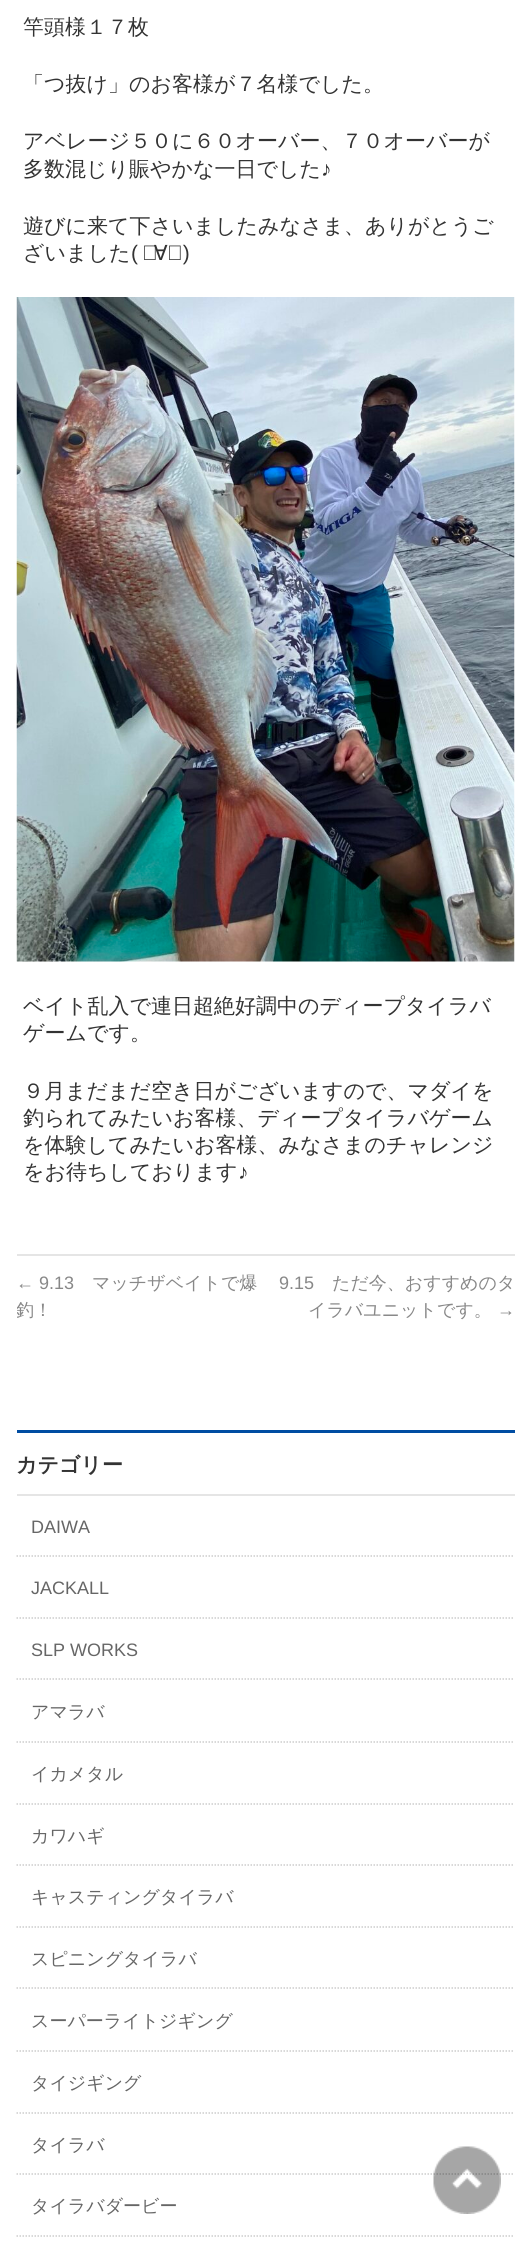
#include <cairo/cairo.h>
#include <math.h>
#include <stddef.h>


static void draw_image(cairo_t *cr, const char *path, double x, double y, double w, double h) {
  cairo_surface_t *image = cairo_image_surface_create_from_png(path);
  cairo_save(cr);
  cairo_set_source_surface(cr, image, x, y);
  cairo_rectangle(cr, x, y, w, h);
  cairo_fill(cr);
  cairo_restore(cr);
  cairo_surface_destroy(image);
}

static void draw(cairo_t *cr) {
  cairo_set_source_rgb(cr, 1, 1, 1);
  cairo_paint(cr);
  draw_image(cr, "images/1.png", 16, 297, 499, 665);
  cairo_set_source_rgb(cr, 229 / 255.0, 229 / 255.0, 229 / 255.0);
  cairo_rectangle(cr, 17, 1254, 498, 2);
  cairo_fill(cr);
  cairo_set_source_rgb(cr, 0, 77 / 255.0, 162 / 255.0);
  cairo_rectangle(cr, 17, 1430, 498, 3);
  cairo_fill(cr);
  cairo_set_source_rgb(cr, 229 / 255.0, 229 / 255.0, 229 / 255.0);
  cairo_rectangle(cr, 17, 1494, 498, 2);
  cairo_fill(cr);
  cairo_new_path(cr);
  cairo_move_to(cr, 16.5, 1556);
  cairo_line_to(cr, 514.5, 1556);
  cairo_set_source_rgb(cr, 204 / 255.0, 204 / 255.0, 204 / 255.0);
  cairo_set_line_width(cr, 1.5);
  cairo_set_dash(cr, (double[]){1.5, 1.5}, 2, 0);
  cairo_stroke(cr);
  cairo_new_path(cr);
  cairo_move_to(cr, 16.5, 1618);
  cairo_line_to(cr, 514.5, 1618);
  cairo_stroke(cr);
  cairo_new_path(cr);
  cairo_move_to(cr, 16.5, 1679);
  cairo_line_to(cr, 514.5, 1679);
  cairo_stroke(cr);
  cairo_new_path(cr);
  cairo_move_to(cr, 16.5, 1742);
  cairo_line_to(cr, 514.5, 1742);
  cairo_stroke(cr);
  cairo_new_path(cr);
  cairo_move_to(cr, 16.5, 1804);
  cairo_line_to(cr, 514.5, 1804);
  cairo_stroke(cr);
  cairo_new_path(cr);
  cairo_move_to(cr, 16.5, 1865);
  cairo_line_to(cr, 514.5, 1865);
  cairo_stroke(cr);
  cairo_new_path(cr);
  cairo_move_to(cr, 16.5, 1927);
  cairo_line_to(cr, 514.5, 1927);
  cairo_stroke(cr);
  cairo_new_path(cr);
  cairo_move_to(cr, 16.5, 1988);
  cairo_line_to(cr, 514.5, 1988);
  cairo_stroke(cr);
  cairo_new_path(cr);
  cairo_move_to(cr, 16.5, 2051);
  cairo_line_to(cr, 514.5, 2051);
  cairo_stroke(cr);
  cairo_new_path(cr);
  cairo_move_to(cr, 16.5, 2113);
  cairo_line_to(cr, 514.5, 2113);
  cairo_stroke(cr);
  cairo_new_path(cr);
  cairo_move_to(cr, 16.5, 2174);
  cairo_line_to(cr, 514.5, 2174);
  cairo_stroke(cr);
  cairo_new_path(cr);
  cairo_move_to(cr, 16.5, 2236);
  cairo_line_to(cr, 514.5, 2236);
  cairo_stroke(cr);
  draw_image(cr, "images/2.png", 433, 2146, 68, 68);
  cairo_select_font_face(cr, "WenQuanYi Zen Hei Medium", CAIRO_FONT_SLANT_NORMAL, CAIRO_FONT_WEIGHT_NORMAL);
  cairo_set_font_size(cr, 21);
  cairo_set_source_rgb(cr, 51 / 255.0, 51 / 255.0, 51 / 255.0);
  cairo_move_to(cr, 23, 34);
  cairo_show_text(cr, "竿頭様１７枚");
  cairo_move_to(cr, 23, 91);
  cairo_show_text(cr, "「つ抜け」のお客様が７名様でした。");
  cairo_move_to(cr, 23, 148);
  cairo_show_text(cr, "アベレージ５０に６０オーバー、７０オーバーが");
  cairo_move_to(cr, 23, 176);
  cairo_show_text(cr, "多数混じり賑やかな一日でした");
  cairo_select_font_face(cr, "Liberation Sans", CAIRO_FONT_SLANT_NORMAL, CAIRO_FONT_WEIGHT_NORMAL);
  cairo_move_to(cr, 321, 176);
  cairo_show_text(cr, "♪");
  cairo_select_font_face(cr, "WenQuanYi Zen Hei Medium", CAIRO_FONT_SLANT_NORMAL, CAIRO_FONT_WEIGHT_NORMAL);
  cairo_move_to(cr, 23, 233);
  cairo_show_text(cr, "遊びに来て下さいましたみなさま、ありがとうご");
  cairo_move_to(cr, 23, 260);
  cairo_show_text(cr, "ざいました");
  cairo_select_font_face(cr, "Liberation Sans", CAIRO_FONT_SLANT_NORMAL, CAIRO_FONT_WEIGHT_NORMAL);
  cairo_move_to(cr, 131, 260);
  cairo_show_text(cr, "(");
  cairo_move_to(cr, 142, 260);
  cairo_show_text(cr, "ﾟ");
  cairo_select_font_face(cr, "WenQuanYi Zen Hei Medium", CAIRO_FONT_SLANT_NORMAL, CAIRO_FONT_WEIGHT_NORMAL);
  cairo_move_to(cr, 154, 260);
  cairo_show_text(cr, "∀");
  cairo_select_font_face(cr, "Liberation Sans", CAIRO_FONT_SLANT_NORMAL, CAIRO_FONT_WEIGHT_NORMAL);
  cairo_move_to(cr, 167, 260);
  cairo_show_text(cr, "ﾟ)");
  cairo_select_font_face(cr, "WenQuanYi Zen Hei Medium", CAIRO_FONT_SLANT_NORMAL, CAIRO_FONT_WEIGHT_NORMAL);
  cairo_move_to(cr, 23, 1013);
  cairo_show_text(cr, "ベイト乱入で連日超絶好調中のディープタイラバ");
  cairo_move_to(cr, 23, 1040);
  cairo_show_text(cr, "ゲームです。");
  cairo_move_to(cr, 23, 1098);
  cairo_show_text(cr, "９月まだまだ空き日がございますので、マダイを");
  cairo_move_to(cr, 23, 1125);
  cairo_show_text(cr, "釣られてみたいお客様、ディープタイラバゲーム");
  cairo_move_to(cr, 23, 1152);
  cairo_show_text(cr, "を体験してみたいお客様、みなさまのチャレンジ");
  cairo_move_to(cr, 23, 1179);
  cairo_show_text(cr, "をお待ちしております");
  cairo_select_font_face(cr, "Liberation Sans", CAIRO_FONT_SLANT_NORMAL, CAIRO_FONT_WEIGHT_NORMAL);
  cairo_move_to(cr, 238, 1179);
  cairo_show_text(cr, "♪");
  cairo_set_font_size(cr, 18);
  cairo_set_source_rgb(cr, 136 / 255.0, 136 / 255.0, 136 / 255.0);
  cairo_move_to(cr, 16, 1289);
  cairo_show_text(cr, "← 9.13");
  cairo_select_font_face(cr, "WenQuanYi Zen Hei Medium", CAIRO_FONT_SLANT_NORMAL, CAIRO_FONT_WEIGHT_NORMAL);
  cairo_move_to(cr, 92, 1289);
  cairo_show_text(cr, "マッチザベイトで爆");
  cairo_save(cr);
  cairo_rectangle(cr, 17, 1256, 498, 91);
  cairo_clip(cr);
  cairo_move_to(cr, 16, 1316);
  cairo_show_text(cr, "釣！");
  cairo_restore(cr);
  cairo_select_font_face(cr, "Liberation Sans", CAIRO_FONT_SLANT_NORMAL, CAIRO_FONT_WEIGHT_NORMAL);
  cairo_move_to(cr, 279, 1289);
  cairo_show_text(cr, "9.15");
  cairo_select_font_face(cr, "WenQuanYi Zen Hei Medium", CAIRO_FONT_SLANT_NORMAL, CAIRO_FONT_WEIGHT_NORMAL);
  cairo_move_to(cr, 332, 1289);
  cairo_show_text(cr, "ただ今、おすすめのタ");
  cairo_move_to(cr, 308, 1316);
  cairo_show_text(cr, "イラバユニットです。");
  cairo_select_font_face(cr, "Liberation Sans", CAIRO_FONT_SLANT_NORMAL, CAIRO_FONT_WEIGHT_NORMAL);
  cairo_move_to(cr, 497, 1316);
  cairo_show_text(cr, "→");
  cairo_select_font_face(cr, "WenQuanYi Zen Hei", CAIRO_FONT_SLANT_NORMAL, CAIRO_FONT_WEIGHT_BOLD);
  cairo_set_font_size(cr, 21);
  cairo_set_source_rgb(cr, 51 / 255.0, 51 / 255.0, 51 / 255.0);
  cairo_move_to(cr, 16, 1472);
  cairo_show_text(cr, "カテゴリー");
  cairo_select_font_face(cr, "Liberation Sans", CAIRO_FONT_SLANT_NORMAL, CAIRO_FONT_WEIGHT_NORMAL);
  cairo_set_font_size(cr, 18);
  cairo_set_source_rgb(cr, 102 / 255.0, 102 / 255.0, 102 / 255.0);
  cairo_move_to(cr, 31, 1533);
  cairo_show_text(cr, "DAIWA");
  cairo_move_to(cr, 31, 1594);
  cairo_show_text(cr, "JACKALL");
  cairo_move_to(cr, 31, 1656);
  cairo_show_text(cr, "SLP WORKS");
  cairo_select_font_face(cr, "WenQuanYi Zen Hei Medium", CAIRO_FONT_SLANT_NORMAL, CAIRO_FONT_WEIGHT_NORMAL);
  cairo_move_to(cr, 31, 1718);
  cairo_show_text(cr, "アマラバ");
  cairo_move_to(cr, 31, 1780);
  cairo_show_text(cr, "イカメタル");
  cairo_move_to(cr, 31, 1842);
  cairo_show_text(cr, "カワハギ");
  cairo_move_to(cr, 31, 1903);
  cairo_show_text(cr, "キャスティングタイラバ");
  cairo_move_to(cr, 31, 1965);
  cairo_show_text(cr, "スピニングタイラバ");
  cairo_move_to(cr, 31, 2027);
  cairo_show_text(cr, "スーパーライトジギング");
  cairo_move_to(cr, 31, 2089);
  cairo_show_text(cr, "タイジギング");
  cairo_move_to(cr, 31, 2151);
  cairo_show_text(cr, "タイラバ");
  cairo_move_to(cr, 31, 2212);
  cairo_show_text(cr, "タイラバダービー");
}

int main(void) {
  cairo_surface_t *surface = cairo_image_surface_create(CAIRO_FORMAT_RGB24, 531, 2244);
  cairo_t *cr = cairo_create(surface);
  cairo_font_options_t *options = cairo_font_options_create();
  cairo_font_options_set_hint_metrics(options, CAIRO_HINT_METRICS_OFF);
  cairo_font_options_set_hint_style(options, CAIRO_HINT_STYLE_NONE);
  cairo_set_font_options(cr, options);
  cairo_set_miter_limit(cr, 4);
  draw(cr);
  cairo_surface_write_to_png(surface, "out.png");
  cairo_font_options_destroy(options);
  cairo_destroy(cr);
  cairo_surface_destroy(surface);
  return 0;
}
